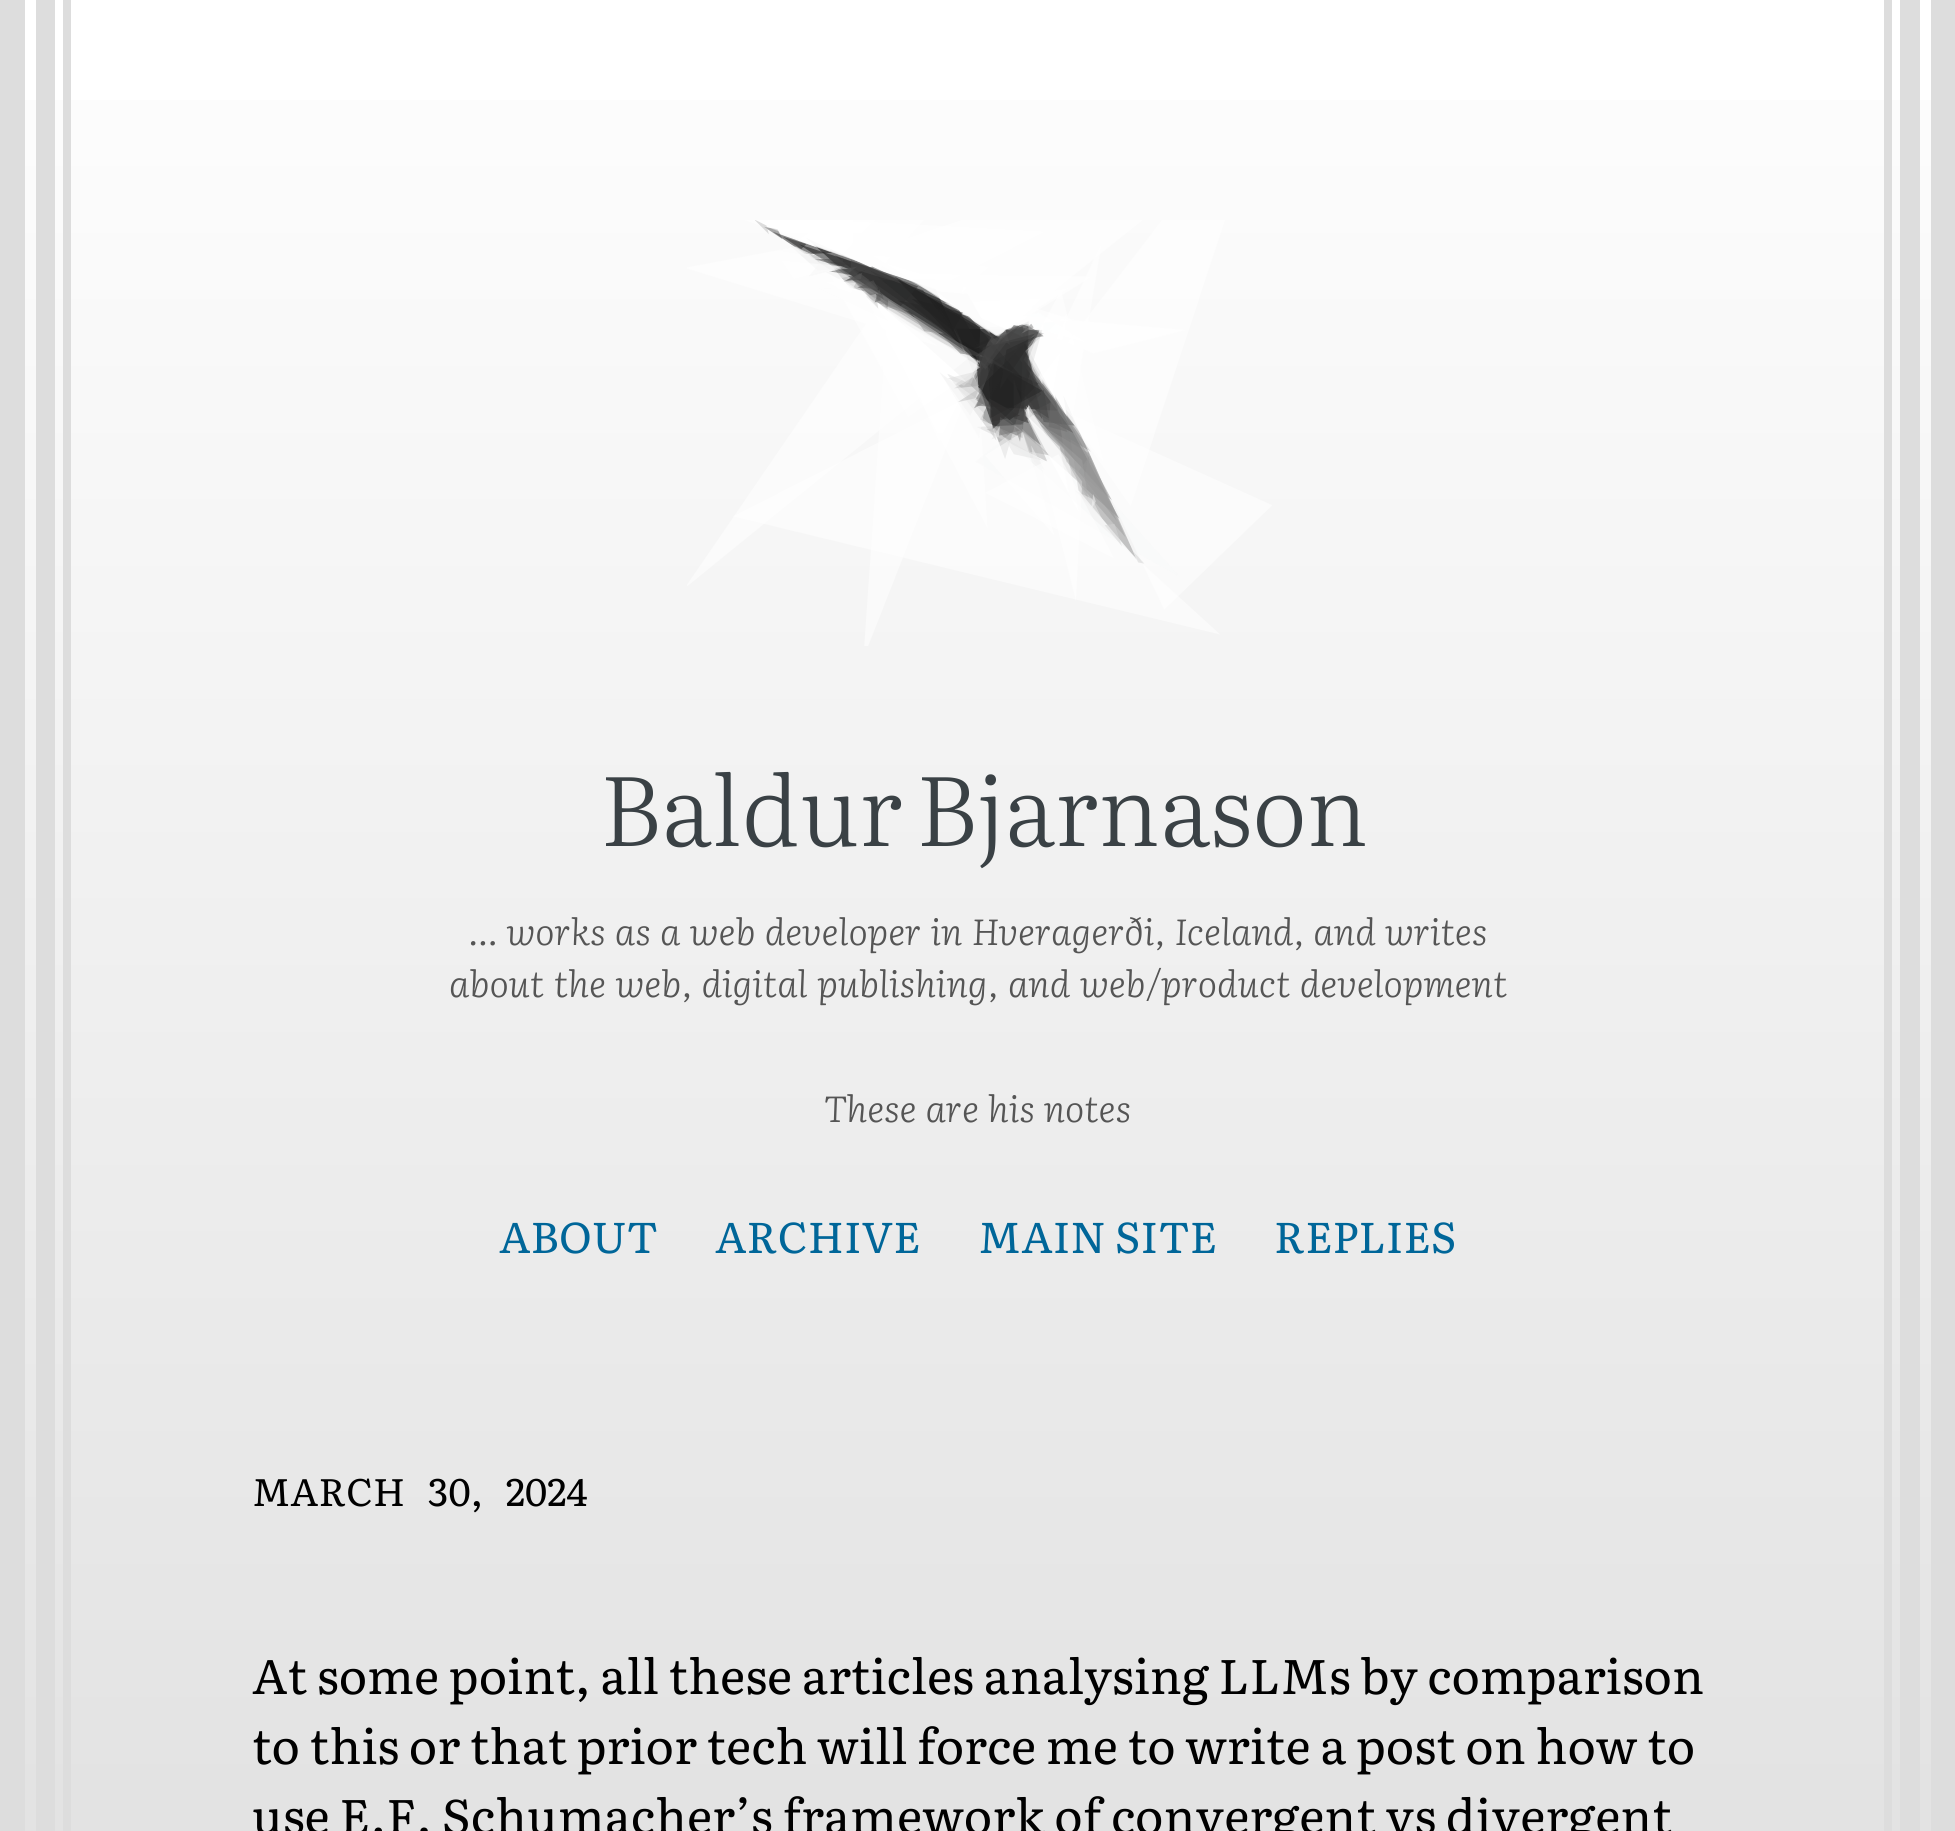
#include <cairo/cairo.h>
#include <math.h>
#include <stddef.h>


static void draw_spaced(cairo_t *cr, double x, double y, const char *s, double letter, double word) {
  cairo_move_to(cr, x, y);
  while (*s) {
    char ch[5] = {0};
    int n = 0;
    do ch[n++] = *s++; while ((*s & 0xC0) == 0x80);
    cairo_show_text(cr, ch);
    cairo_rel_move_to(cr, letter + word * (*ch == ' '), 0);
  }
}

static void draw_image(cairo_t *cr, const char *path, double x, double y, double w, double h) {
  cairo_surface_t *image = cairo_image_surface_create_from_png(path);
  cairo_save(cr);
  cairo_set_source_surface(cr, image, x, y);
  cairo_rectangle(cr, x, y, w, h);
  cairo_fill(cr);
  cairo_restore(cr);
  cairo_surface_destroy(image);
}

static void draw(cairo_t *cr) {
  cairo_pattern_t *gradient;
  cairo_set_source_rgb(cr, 1, 1, 1);
  cairo_paint(cr);
  gradient = cairo_pattern_create_linear(978, 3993, 978, 0);
  cairo_pattern_add_color_stop_rgba(gradient, 0, 254 / 255.0, 254 / 255.0, 254 / 255.0, 1);
  cairo_pattern_add_color_stop_rgba(gradient, 0.5, 224 / 255.0, 224 / 255.0, 224 / 255.0, 1);
  cairo_pattern_add_color_stop_rgba(gradient, 1, 254 / 255.0, 254 / 255.0, 254 / 255.0, 1);
  cairo_set_source(cr, gradient);
  cairo_pattern_destroy(gradient);
  cairo_rectangle(cr, 25, 100, 1906, 1731);
  cairo_fill(cr);
  cairo_set_source_rgb(cr, 221 / 255.0, 221 / 255.0, 221 / 255.0);
  cairo_rectangle(cr, 1931, 0, 24, 1831);
  cairo_fill(cr);
  cairo_rectangle(cr, 1900, 0, 20, 1831);
  cairo_fill(cr);
  cairo_rectangle(cr, 1884, 0, 8, 1831);
  cairo_fill(cr);
  cairo_rectangle(cr, 0, 0, 25, 1831);
  cairo_fill(cr);
  cairo_rectangle(cr, 36, 0, 19, 1831);
  cairo_fill(cr);
  cairo_rectangle(cr, 63, 0, 8, 1831);
  cairo_fill(cr);
  draw_image(cr, "images/1.png", 687, 220, 585, 426);
  cairo_select_font_face(cr, "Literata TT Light", CAIRO_FONT_SLANT_NORMAL, CAIRO_FONT_WEIGHT_NORMAL);
  cairo_set_font_size(cr, 96.75);
  cairo_set_source_rgb(cr, 58 / 255.0, 65 / 255.0, 69 / 255.0);
  draw_spaced(cr, 600, 846, "Baldur Bjarnason", 0, -6);
  cairo_select_font_face(cr, "Literata TT Light", CAIRO_FONT_SLANT_ITALIC, CAIRO_FONT_WEIGHT_NORMAL);
  cairo_set_font_size(cr, 36.3);
  cairo_set_source_rgb(cr, 85 / 255.0, 85 / 255.0, 85 / 255.0);
  draw_spaced(cr, 468, 945, "... works as a web developer in Hveragerði, Iceland, and writes", 0, 2.4);
  draw_spaced(cr, 449, 997, "about the web, digital publishing, and web/product development", 0, 2.75);
  draw_spaced(cr, 824, 1122, "These are his notes", 0, 2);
  cairo_select_font_face(cr, "Literata TT", CAIRO_FONT_SLANT_NORMAL, CAIRO_FONT_WEIGHT_NORMAL);
  cairo_set_font_size(cr, 43);
  cairo_set_source_rgb(cr, 0, 102 / 255.0, 153 / 255.0);
  cairo_move_to(cr, 499, 1253);
  cairo_show_text(cr, "ABOUT");
  cairo_move_to(cr, 715, 1253);
  cairo_show_text(cr, "ARCHIVE");
  cairo_move_to(cr, 978, 1253);
  cairo_show_text(cr, "MAIN SITE");
  cairo_move_to(cr, 1274, 1253);
  cairo_show_text(cr, "REPLIES");
  cairo_set_font_size(cr, 38.25);
  cairo_set_source_rgb(cr, 0, 0, 0);
  draw_spaced(cr, 252, 1506, "MARCH 30, 2024", 0, 15);
  cairo_set_font_size(cr, 48.4);
  cairo_move_to(cr, 252, 1694);
  cairo_show_text(cr, "At some point, all these articles analysing LLMs by comparison");
  cairo_move_to(cr, 252, 1764);
  cairo_show_text(cr, "to this or that prior tech will force me to write a post on how to");
  cairo_move_to(cr, 252, 1834);
  cairo_show_text(cr, "use E.F. Schumacher’s framework of convergent vs divergent");
}

int main(void) {
  cairo_surface_t *surface = cairo_image_surface_create(CAIRO_FORMAT_RGB24, 1955, 1831);
  cairo_t *cr = cairo_create(surface);
  cairo_font_options_t *options = cairo_font_options_create();
  cairo_font_options_set_hint_metrics(options, CAIRO_HINT_METRICS_OFF);
  cairo_font_options_set_hint_style(options, CAIRO_HINT_STYLE_NONE);
  cairo_set_font_options(cr, options);
  cairo_set_miter_limit(cr, 4);
  draw(cr);
  cairo_surface_write_to_png(surface, "out.png");
  cairo_font_options_destroy(options);
  cairo_destroy(cr);
  cairo_surface_destroy(surface);
  return 0;
}
